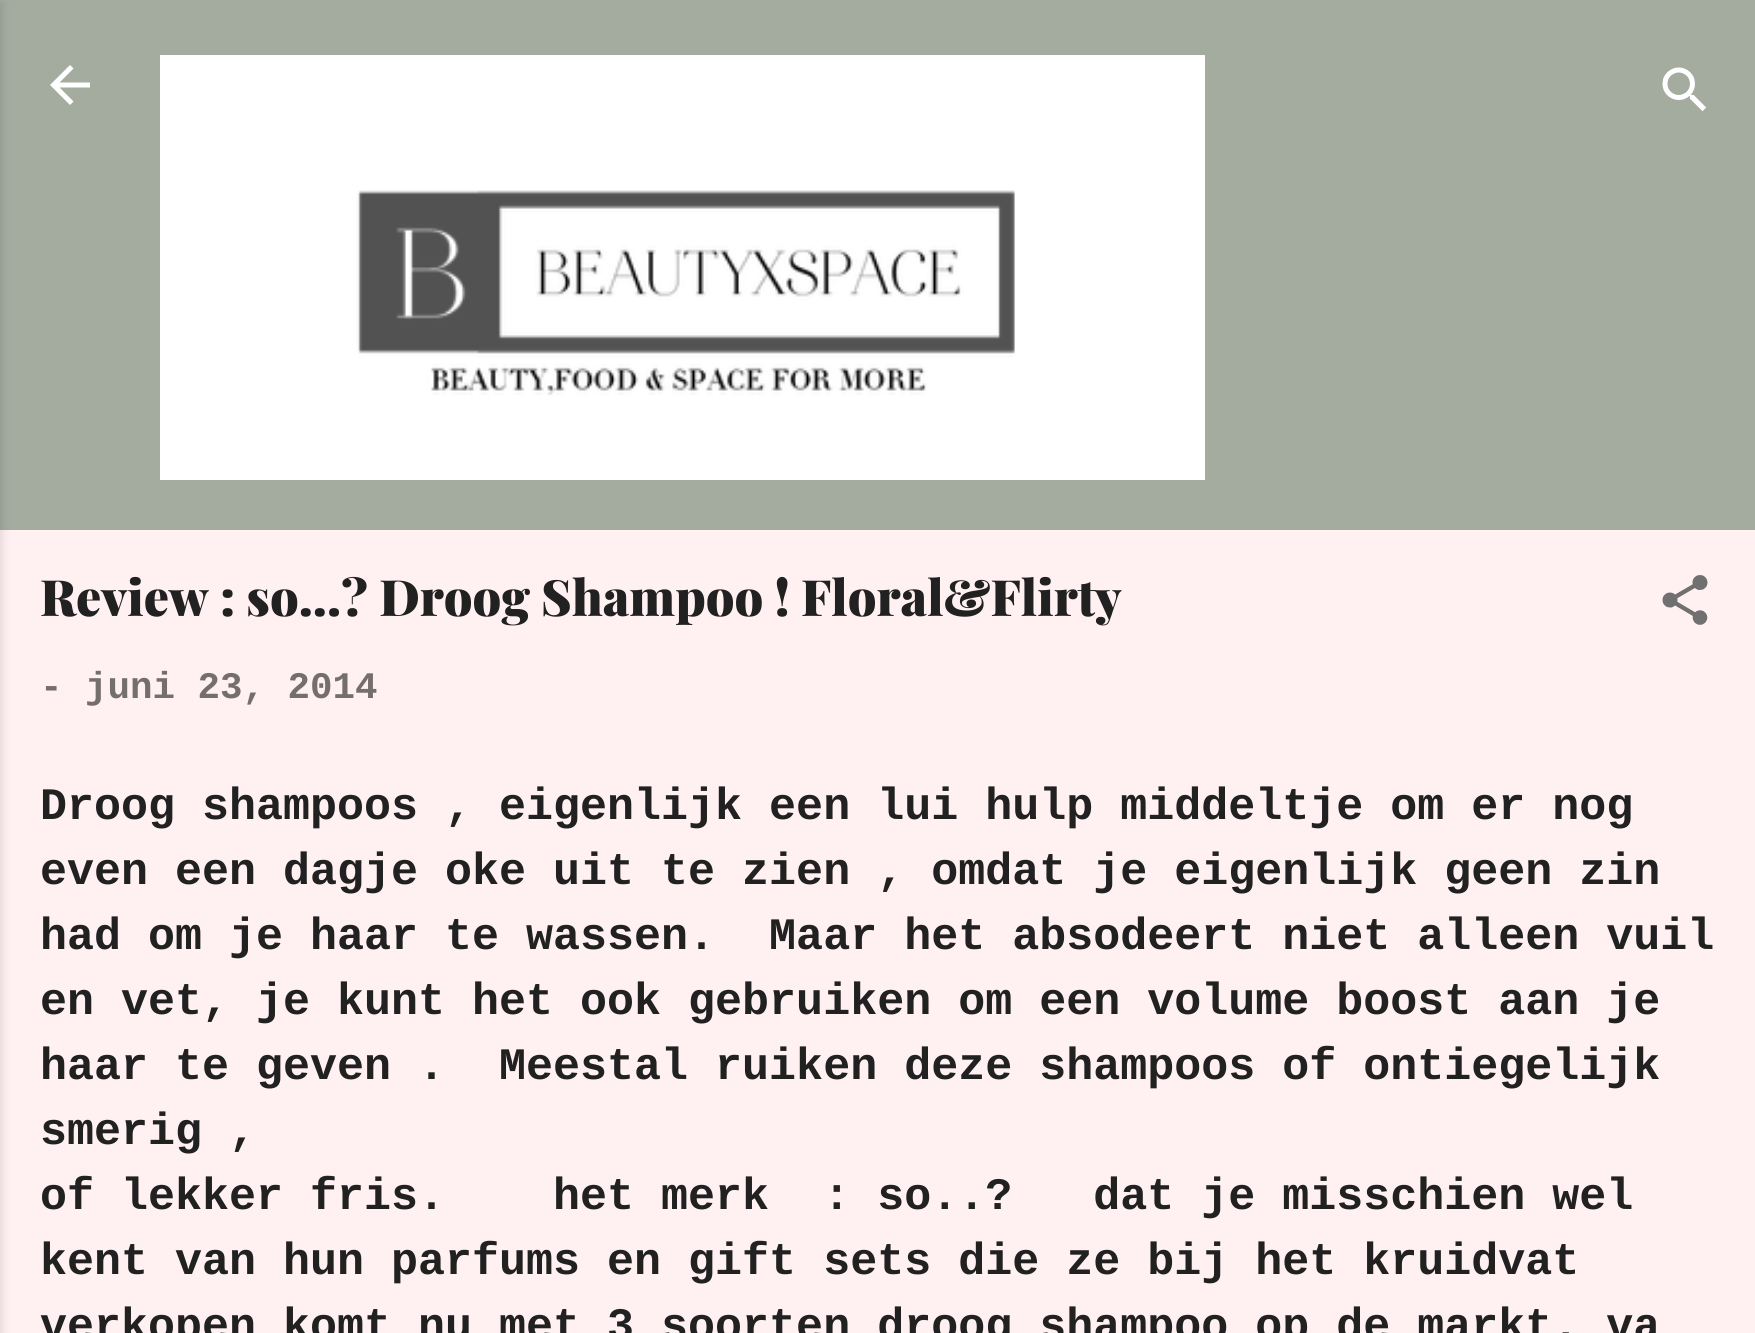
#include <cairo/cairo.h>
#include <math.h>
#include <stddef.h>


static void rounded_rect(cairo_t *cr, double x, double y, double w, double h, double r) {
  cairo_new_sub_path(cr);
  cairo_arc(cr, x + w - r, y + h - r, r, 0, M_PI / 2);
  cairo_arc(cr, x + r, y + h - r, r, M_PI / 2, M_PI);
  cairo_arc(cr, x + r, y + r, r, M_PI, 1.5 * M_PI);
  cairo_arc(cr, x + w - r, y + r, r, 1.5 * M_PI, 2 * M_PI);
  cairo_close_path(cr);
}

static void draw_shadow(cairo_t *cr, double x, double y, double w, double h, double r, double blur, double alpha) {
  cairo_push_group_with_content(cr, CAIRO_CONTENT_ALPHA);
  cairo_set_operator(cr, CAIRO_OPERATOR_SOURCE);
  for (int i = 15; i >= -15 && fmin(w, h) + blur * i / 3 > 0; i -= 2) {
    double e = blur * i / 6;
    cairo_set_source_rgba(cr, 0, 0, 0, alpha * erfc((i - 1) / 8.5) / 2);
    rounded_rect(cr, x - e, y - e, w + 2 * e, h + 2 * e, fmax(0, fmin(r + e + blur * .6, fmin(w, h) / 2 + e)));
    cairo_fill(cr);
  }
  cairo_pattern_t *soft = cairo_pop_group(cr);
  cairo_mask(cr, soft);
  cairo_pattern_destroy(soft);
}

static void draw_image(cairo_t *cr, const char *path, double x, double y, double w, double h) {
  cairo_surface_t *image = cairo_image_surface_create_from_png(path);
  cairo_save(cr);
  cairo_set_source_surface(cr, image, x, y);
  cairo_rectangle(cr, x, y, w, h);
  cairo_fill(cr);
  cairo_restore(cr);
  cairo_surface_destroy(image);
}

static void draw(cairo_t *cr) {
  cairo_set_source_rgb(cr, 164 / 255.0, 171 / 255.0, 159 / 255.0);
  cairo_paint(cr);
  cairo_set_source_rgb(cr, 1, 240 / 255.0, 242 / 255.0);
  cairo_rectangle(cr, 0, 530, 1755, 803);
  cairo_fill(cr);
  cairo_set_source_rgb(cr, 0, 0, 0);
  draw_shadow(cr, -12, 3, 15, 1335, 0, 4, 0.1);
  draw_image(cr, "images/1.png", 50, 65, 40, 40);
  draw_image(cr, "images/2.png", 160, 55, 1045, 425);
  draw_image(cr, "images/3.png", 1662, 67, 44, 45);
  draw_image(cr, "images/4.png", 1662, 575, 46, 50);
  cairo_select_font_face(cr, "Playfair Display Black", CAIRO_FONT_SLANT_NORMAL, CAIRO_FONT_WEIGHT_NORMAL);
  cairo_set_font_size(cr, 50);
  cairo_set_source_rgb(cr, 33 / 255.0, 33 / 255.0, 33 / 255.0);
  cairo_move_to(cr, 40, 616);
  cairo_show_text(cr, "Review : so...? Droog Shampoo ! Floral&Flirty");
  cairo_select_font_face(cr, "Liberation Mono", CAIRO_FONT_SLANT_NORMAL, CAIRO_FONT_WEIGHT_BOLD);
  cairo_set_font_size(cr, 37.5);
  cairo_set_source_rgb(cr, 117 / 255.0, 110 / 255.0, 111 / 255.0);
  cairo_move_to(cr, 40, 698);
  cairo_show_text(cr, "- juni 23, 2014");
  cairo_set_font_size(cr, 45);
  cairo_set_source_rgb(cr, 33 / 255.0, 33 / 255.0, 33 / 255.0);
  cairo_move_to(cr, 40, 819);
  cairo_show_text(cr, "Droog shampoos , eigenlijk een lui hulp middeltje om er nog");
  cairo_move_to(cr, 40, 884);
  cairo_show_text(cr, "even een dagje oke uit te zien , omdat je eigenlijk geen zin");
  cairo_move_to(cr, 40, 949);
  cairo_show_text(cr, "had om je haar te wassen.  Maar het absodeert niet alleen vuil");
  cairo_move_to(cr, 40, 1014);
  cairo_show_text(cr, "en vet, je kunt het ook gebruiken om een volume boost aan je");
  cairo_move_to(cr, 40, 1079);
  cairo_show_text(cr, "haar te geven .  Meestal ruiken deze shampoos of ontiegelijk");
  cairo_move_to(cr, 40, 1144);
  cairo_show_text(cr, "smerig ,");
  cairo_move_to(cr, 40, 1209);
  cairo_show_text(cr, "of lekker fris.    het merk  : so..?   dat je misschien wel");
  cairo_move_to(cr, 40, 1274);
  cairo_show_text(cr, "kent van hun parfums en gift sets die ze bij het kruidvat");
  cairo_move_to(cr, 40, 1339);
  cairo_show_text(cr, "verkopen komt nu met 3 soorten droog shampoo op de markt. va");
}

int main(void) {
  cairo_surface_t *surface = cairo_image_surface_create(CAIRO_FORMAT_RGB24, 1755, 1333);
  cairo_t *cr = cairo_create(surface);
  cairo_font_options_t *options = cairo_font_options_create();
  cairo_font_options_set_hint_metrics(options, CAIRO_HINT_METRICS_OFF);
  cairo_font_options_set_hint_style(options, CAIRO_HINT_STYLE_NONE);
  cairo_set_font_options(cr, options);
  cairo_set_miter_limit(cr, 4);
  draw(cr);
  cairo_surface_write_to_png(surface, "out.png");
  cairo_font_options_destroy(options);
  cairo_destroy(cr);
  cairo_surface_destroy(surface);
  return 0;
}
